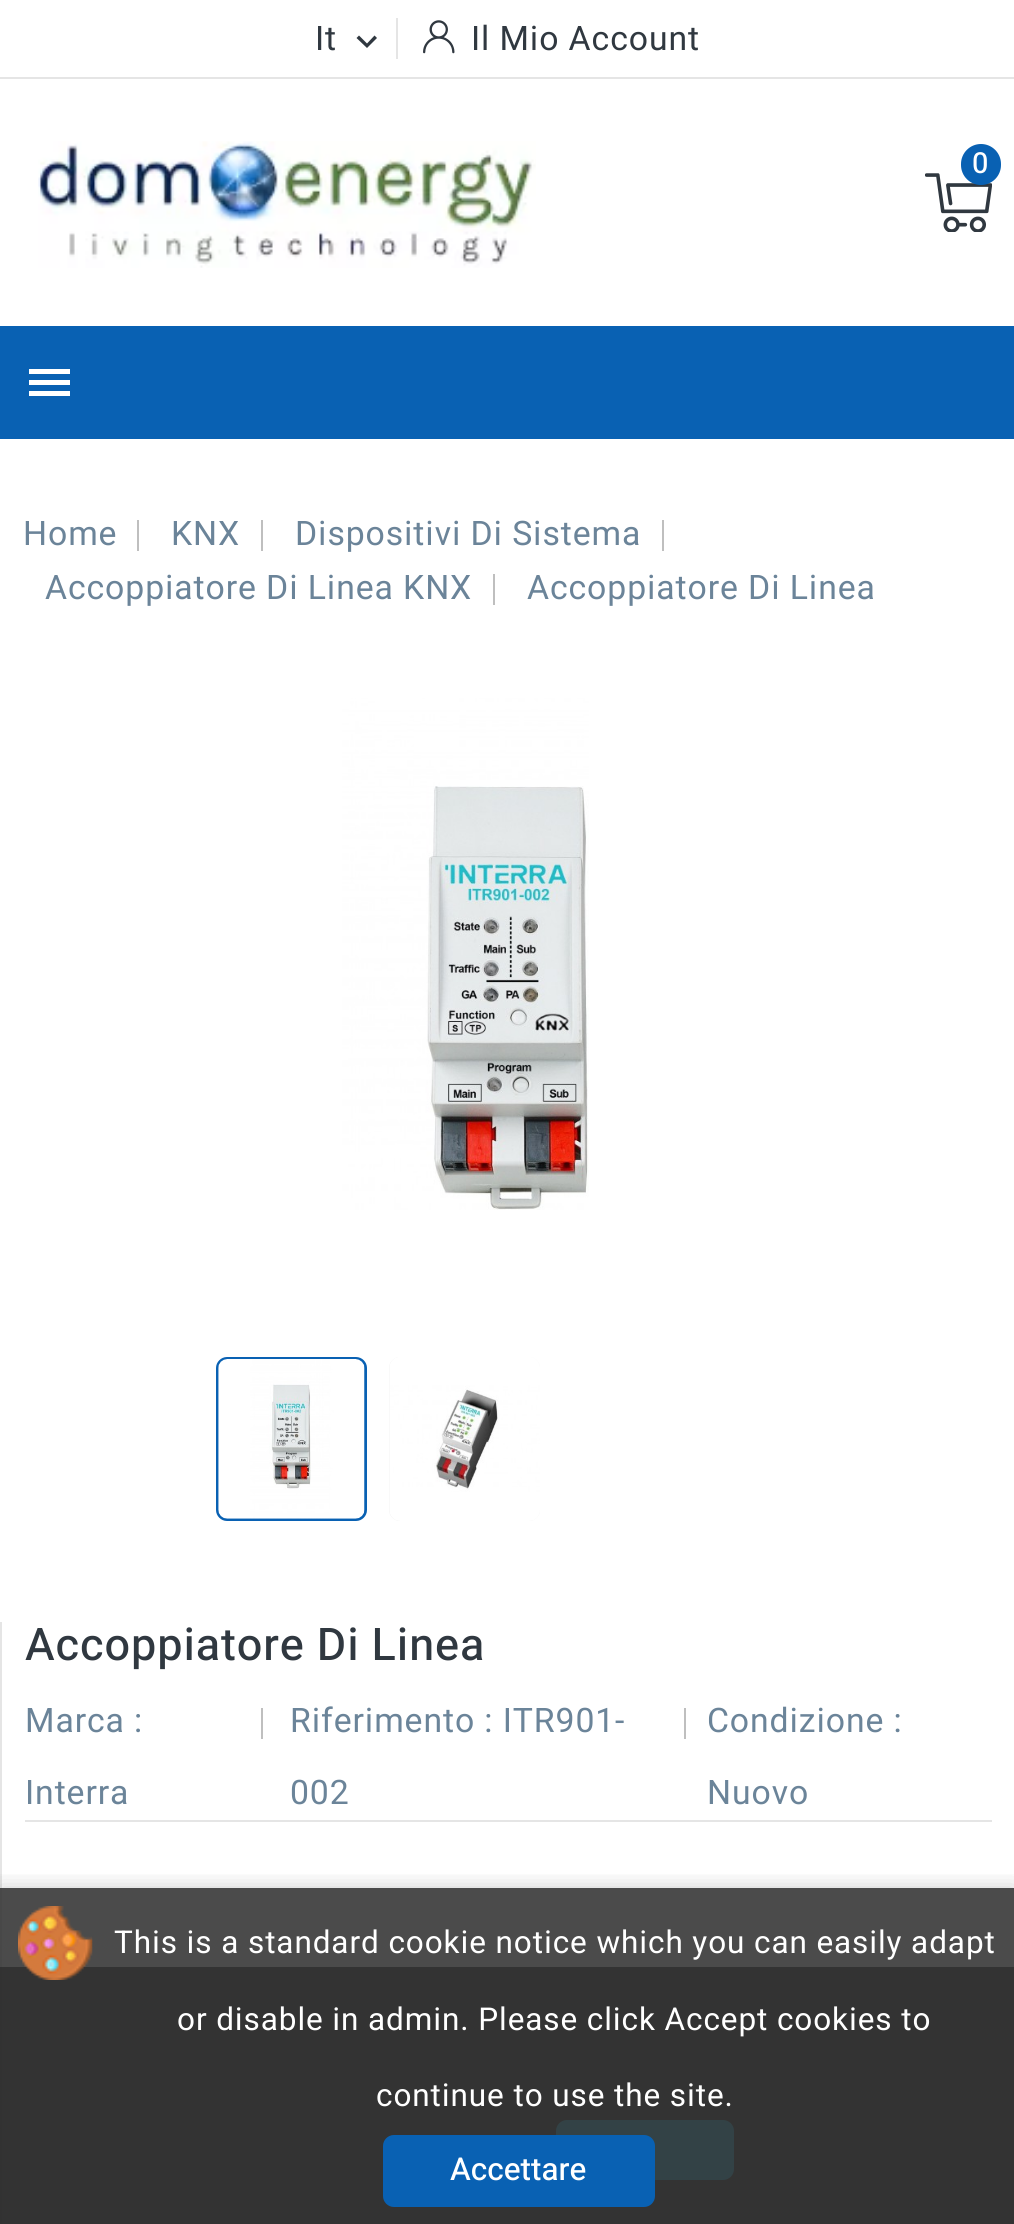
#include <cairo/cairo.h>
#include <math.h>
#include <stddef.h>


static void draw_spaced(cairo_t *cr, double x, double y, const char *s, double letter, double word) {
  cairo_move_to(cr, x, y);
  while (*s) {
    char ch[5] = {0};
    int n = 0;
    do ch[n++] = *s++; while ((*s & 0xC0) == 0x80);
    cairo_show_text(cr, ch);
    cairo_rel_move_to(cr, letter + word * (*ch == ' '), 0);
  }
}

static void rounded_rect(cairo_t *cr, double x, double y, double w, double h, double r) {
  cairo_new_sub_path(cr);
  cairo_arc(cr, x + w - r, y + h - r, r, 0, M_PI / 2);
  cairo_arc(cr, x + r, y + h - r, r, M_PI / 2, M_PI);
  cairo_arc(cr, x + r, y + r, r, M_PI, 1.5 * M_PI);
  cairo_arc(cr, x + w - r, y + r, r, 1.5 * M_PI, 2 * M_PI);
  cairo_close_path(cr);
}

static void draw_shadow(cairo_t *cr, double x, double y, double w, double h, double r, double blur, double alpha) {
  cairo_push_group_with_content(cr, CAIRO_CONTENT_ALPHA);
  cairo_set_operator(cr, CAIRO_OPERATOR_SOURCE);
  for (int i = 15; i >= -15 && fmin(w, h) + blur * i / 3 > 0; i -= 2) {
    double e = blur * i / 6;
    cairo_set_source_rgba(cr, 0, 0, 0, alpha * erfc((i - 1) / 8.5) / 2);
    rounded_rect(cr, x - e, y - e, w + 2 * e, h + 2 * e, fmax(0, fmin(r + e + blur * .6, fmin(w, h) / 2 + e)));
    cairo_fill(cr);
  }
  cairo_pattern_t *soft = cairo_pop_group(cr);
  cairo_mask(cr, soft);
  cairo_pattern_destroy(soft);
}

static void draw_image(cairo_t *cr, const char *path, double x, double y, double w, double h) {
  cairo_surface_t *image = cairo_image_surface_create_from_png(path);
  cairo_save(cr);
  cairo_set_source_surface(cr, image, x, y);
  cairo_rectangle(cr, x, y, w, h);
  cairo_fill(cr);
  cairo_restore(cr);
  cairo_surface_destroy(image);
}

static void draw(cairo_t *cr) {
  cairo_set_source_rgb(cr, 1, 1, 1);
  cairo_paint(cr);
  cairo_set_source_rgb(cr, 51 / 255.0, 51 / 255.0, 51 / 255.0);
  cairo_rectangle(cr, 2, 1967, 1012, 257);
  cairo_fill(cr);
  cairo_set_source_rgb(cr, 229 / 255.0, 229 / 255.0, 229 / 255.0);
  cairo_rectangle(cr, 0, 77, 1014, 2);
  cairo_fill(cr);
  cairo_set_source_rgb(cr, 48 / 255.0, 56 / 255.0, 64 / 255.0);
  cairo_new_path(cr);
  cairo_move_to(cr, 359, 35.5);
  cairo_line_to(cr, 367, 43.5);
  cairo_line_to(cr, 374.5, 35.5);
  cairo_line_to(cr, 377, 38);
  cairo_line_to(cr, 367, 48);
  cairo_line_to(cr, 356.5, 38);
  cairo_close_path(cr);
  cairo_fill(cr);
  cairo_set_source_rgb(cr, 229 / 255.0, 229 / 255.0, 229 / 255.0);
  cairo_rectangle(cr, 396, 18, 2, 41);
  cairo_fill(cr);
  draw_image(cr, "images/1.png", 423, 20, 32, 34);
  draw_image(cr, "images/2.png", 38, 141, 498, 127);
  draw_image(cr, "images/3.png", 925, 173, 67, 59);
  cairo_set_source_rgb(cr, 9 / 255.0, 97 / 255.0, 179 / 255.0);
  rounded_rect(cr, 961, 144, 40, 41, 20);
  cairo_fill(cr);
  cairo_rectangle(cr, 0, 326, 1014, 113);
  cairo_fill(cr);
  cairo_set_source_rgb(cr, 1, 1, 1);
  cairo_new_path(cr);
  cairo_move_to(cr, 29, 369);
  cairo_line_to(cr, 70, 369);
  cairo_line_to(cr, 70, 374);
  cairo_line_to(cr, 29, 374);
  cairo_close_path(cr);
  cairo_move_to(cr, 29, 385);
  cairo_line_to(cr, 29, 380);
  cairo_line_to(cr, 70, 380);
  cairo_line_to(cr, 70, 385);
  cairo_close_path(cr);
  cairo_move_to(cr, 29, 396);
  cairo_line_to(cr, 29, 391);
  cairo_line_to(cr, 70, 391);
  cairo_line_to(cr, 70, 396);
  cairo_close_path(cr);
  cairo_fill(cr);
  cairo_set_source_rgb(cr, 191 / 255.0, 191 / 255.0, 191 / 255.0);
  cairo_rectangle(cr, 137, 520, 2, 31);
  cairo_fill(cr);
  cairo_rectangle(cr, 261, 520, 2, 31);
  cairo_fill(cr);
  cairo_rectangle(cr, 662, 520, 2, 31);
  cairo_fill(cr);
  cairo_rectangle(cr, 493, 574, 2, 31);
  cairo_fill(cr);
  draw_image(cr, "images/4.png", 221, 698, 368, 512);
  cairo_set_source_rgb(cr, 9 / 255.0, 97 / 255.0, 179 / 255.0);
  cairo_new_path(cr);
  cairo_move_to(cr, 227, 1357);
  cairo_line_to(cr, 356, 1357);
  cairo_curve_to(cr, 362, 1357, 367, 1362, 367, 1368);
  cairo_line_to(cr, 367, 1510);
  cairo_curve_to(cr, 367, 1516, 362, 1521, 356, 1521);
  cairo_line_to(cr, 227, 1521);
  cairo_curve_to(cr, 221, 1521, 216, 1516, 216, 1510);
  cairo_line_to(cr, 216, 1368);
  cairo_curve_to(cr, 216, 1362, 221, 1357, 227, 1357);
  cairo_close_path(cr);
  cairo_fill(cr);
  draw_image(cr, "images/5.png", 218, 1359, 147, 160);
  cairo_set_source_rgb(cr, 245 / 255.0, 245 / 255.0, 245 / 255.0);
  rounded_rect(cr, 389, 1357, 151, 164, 11);
  cairo_fill(cr);
  draw_image(cr, "images/6.png", 389, 1357, 151, 164);
  cairo_set_source_rgb(cr, 229 / 255.0, 229 / 255.0, 229 / 255.0);
  cairo_rectangle(cr, 0, 1622, 2, 345);
  cairo_fill(cr);
  cairo_set_source_rgb(cr, 46 / 255.0, 46 / 255.0, 46 / 255.0);
  cairo_rectangle(cr, 0, 1967, 2, 257);
  cairo_fill(cr);
  cairo_set_source_rgb(cr, 229 / 255.0, 229 / 255.0, 229 / 255.0);
  cairo_rectangle(cr, 25, 1820, 967, 2);
  cairo_fill(cr);
  cairo_set_source_rgb(cr, 191 / 255.0, 191 / 255.0, 191 / 255.0);
  cairo_rectangle(cr, 261, 1708, 2, 31);
  cairo_fill(cr);
  cairo_rectangle(cr, 684, 1708, 2, 31);
  cairo_fill(cr);
  cairo_set_source_rgb(cr, 47 / 255.0, 181 / 255.0, 210 / 255.0);
  rounded_rect(cr, 556, 2120, 178, 60, 11);
  cairo_fill(cr);
  cairo_save(cr);
  cairo_rectangle(cr, 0, 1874, 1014, 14);
  cairo_clip(cr);
  cairo_set_source_rgb(cr, 0, 0, 0);
  draw_shadow(cr, 0, 1888, 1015, 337, 0, 11, 0.2);
  cairo_restore(cr);
  cairo_set_source_rgba(cr, 51 / 255.0, 51 / 255.0, 51 / 255.0, 0.88);
  cairo_rectangle(cr, 0, 1888, 1014, 336);
  cairo_fill(cr);
  draw_image(cr, "images/7.png", 18, 1906, 75, 74);
  cairo_set_source_rgb(cr, 9 / 255.0, 97 / 255.0, 179 / 255.0);
  rounded_rect(cr, 383, 2135, 272, 72, 11);
  cairo_fill(cr);
  cairo_select_font_face(cr, "Heebo", CAIRO_FONT_SLANT_NORMAL, CAIRO_FONT_WEIGHT_NORMAL);
  cairo_set_font_size(cr, 33.75);
  cairo_set_source_rgb(cr, 48 / 255.0, 56 / 255.0, 64 / 255.0);
  draw_spaced(cr, 315, 50, "It", 0.9, 0);
  draw_spaced(cr, 471, 50, "Il Mio Account", 0.9, 0);
  cairo_select_font_face(cr, "Heebo Medium", CAIRO_FONT_SLANT_NORMAL, CAIRO_FONT_WEIGHT_NORMAL);
  cairo_set_font_size(cr, 29);
  cairo_set_source_rgb(cr, 1, 1, 1);
  draw_spaced(cr, 972, 173, "0", 0.9, 0);
  cairo_select_font_face(cr, "Heebo", CAIRO_FONT_SLANT_NORMAL, CAIRO_FONT_WEIGHT_NORMAL);
  cairo_set_font_size(cr, 33.75);
  cairo_set_source_rgb(cr, 107 / 255.0, 132 / 255.0, 153 / 255.0);
  draw_spaced(cr, 23, 545, "Home", 0.9, 0);
  draw_spaced(cr, 171, 545, "KNX", 0.9, 0);
  draw_spaced(cr, 295, 545, "Dispositivi Di Sistema", 0.9, 0);
  draw_spaced(cr, 45, 599, "Accoppiatore Di Linea KNX", 0.9, 0);
  draw_spaced(cr, 527, 599, "Accoppiatore Di Linea", 0.9, 0);
  cairo_select_font_face(cr, "Heebo Medium", CAIRO_FONT_SLANT_NORMAL, CAIRO_FONT_WEIGHT_NORMAL);
  cairo_set_font_size(cr, 45);
  cairo_set_source_rgb(cr, 48 / 255.0, 56 / 255.0, 64 / 255.0);
  draw_spaced(cr, 25, 1660, "Accoppiatore Di Linea", 0.9, 0);
  cairo_select_font_face(cr, "Heebo", CAIRO_FONT_SLANT_NORMAL, CAIRO_FONT_WEIGHT_NORMAL);
  cairo_set_font_size(cr, 33.75);
  cairo_set_source_rgb(cr, 107 / 255.0, 132 / 255.0, 153 / 255.0);
  draw_spaced(cr, 25, 1732, "Marca :", 0.9, 0);
  draw_spaced(cr, 25, 1804, "Interra", 0.9, 0);
  draw_spaced(cr, 290, 1732, "Riferimento : ITR901-", 0.9, 0);
  draw_spaced(cr, 290, 1804, "002", 0.9, 0);
  draw_spaced(cr, 707, 1732, "Condizione :", 0.9, 0);
  draw_spaced(cr, 707, 1804, "Nuovo", 0.9, 0);
  cairo_set_font_size(cr, 31.5);
  cairo_set_source_rgb(cr, 1, 1, 1);
  draw_spaced(cr, 114, 1953, "This is a standard cookie notice which you can easily adapt", 0.9, 0);
  draw_spaced(cr, 177, 2030, "or disable in admin. Please click Accept cookies to", 0.9, 0);
  draw_spaced(cr, 376, 2106, "continue to use the site.", 0.9, 0);
  cairo_select_font_face(cr, "Heebo Medium", CAIRO_FONT_SLANT_NORMAL, CAIRO_FONT_WEIGHT_NORMAL);
  cairo_move_to(cr, 450, 2180);
  cairo_show_text(cr, "Accettare");
}

int main(void) {
  cairo_surface_t *surface = cairo_image_surface_create(CAIRO_FORMAT_RGB24, 1014, 2224);
  cairo_t *cr = cairo_create(surface);
  cairo_font_options_t *options = cairo_font_options_create();
  cairo_font_options_set_hint_metrics(options, CAIRO_HINT_METRICS_OFF);
  cairo_font_options_set_hint_style(options, CAIRO_HINT_STYLE_NONE);
  cairo_set_font_options(cr, options);
  cairo_set_miter_limit(cr, 4);
  draw(cr);
  cairo_surface_write_to_png(surface, "out.png");
  cairo_font_options_destroy(options);
  cairo_destroy(cr);
  cairo_surface_destroy(surface);
  return 0;
}
